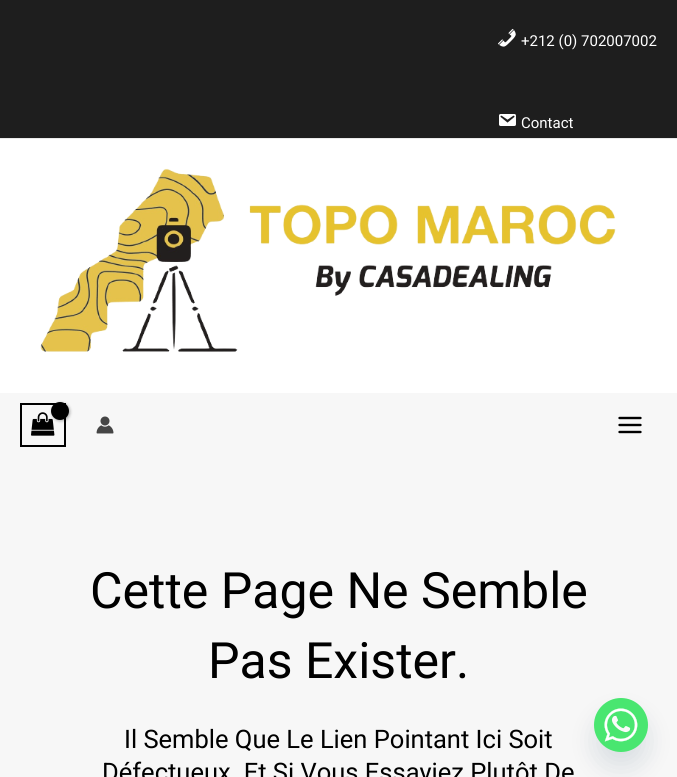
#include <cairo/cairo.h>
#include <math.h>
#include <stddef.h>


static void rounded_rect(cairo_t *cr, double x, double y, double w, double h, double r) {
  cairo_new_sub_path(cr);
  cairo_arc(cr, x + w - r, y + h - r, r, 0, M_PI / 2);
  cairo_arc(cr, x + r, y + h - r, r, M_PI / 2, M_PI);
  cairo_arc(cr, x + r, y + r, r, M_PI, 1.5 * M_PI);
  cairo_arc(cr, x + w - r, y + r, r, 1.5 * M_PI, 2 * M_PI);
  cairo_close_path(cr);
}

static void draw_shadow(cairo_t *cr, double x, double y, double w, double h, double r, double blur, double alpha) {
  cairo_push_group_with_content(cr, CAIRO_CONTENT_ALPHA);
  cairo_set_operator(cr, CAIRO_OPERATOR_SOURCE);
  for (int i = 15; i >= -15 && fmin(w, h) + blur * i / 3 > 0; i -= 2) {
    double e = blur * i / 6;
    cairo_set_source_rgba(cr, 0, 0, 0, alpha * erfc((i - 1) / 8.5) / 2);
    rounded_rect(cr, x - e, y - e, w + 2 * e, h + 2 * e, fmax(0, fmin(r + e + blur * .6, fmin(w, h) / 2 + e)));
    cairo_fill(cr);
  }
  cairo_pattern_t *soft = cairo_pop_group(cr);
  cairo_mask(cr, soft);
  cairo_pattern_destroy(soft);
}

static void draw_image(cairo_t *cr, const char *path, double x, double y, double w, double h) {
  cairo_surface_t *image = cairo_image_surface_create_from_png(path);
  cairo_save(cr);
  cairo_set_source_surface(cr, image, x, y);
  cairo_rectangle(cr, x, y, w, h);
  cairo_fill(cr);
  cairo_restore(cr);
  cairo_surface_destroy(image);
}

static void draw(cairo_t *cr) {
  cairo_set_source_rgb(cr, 247 / 255.0, 247 / 255.0, 247 / 255.0);
  cairo_paint(cr);
  cairo_set_source_rgb(cr, 30 / 255.0, 30 / 255.0, 30 / 255.0);
  cairo_rectangle(cr, 0, 0, 677, 138);
  cairo_fill(cr);
  cairo_set_source_rgb(cr, 234 / 255.0, 234 / 255.0, 234 / 255.0);
  cairo_rectangle(cr, 0, 138, 677, 1);
  cairo_fill(cr);
  draw_image(cr, "images/1.png", 498, 28, 18, 19);
  draw_image(cr, "images/2.png", 499, 114, 17, 12);
  cairo_set_source_rgb(cr, 1, 1, 1);
  cairo_rectangle(cr, 0, 139, 677, 254);
  cairo_fill(cr);
  draw_image(cr, "images/3.png", 40, 168, 576, 184);
  cairo_rectangle(cr, 21, 404, 44, 42);
  cairo_set_source_rgb(cr, 0, 0, 0);
  cairo_stroke(cr);
  draw_image(cr, "images/4.png", 31, 412, 24, 24);
  cairo_set_source_rgb(cr, 0, 0, 0);
  draw_shadow(cr, 52, 403, 18, 18, 9, 1.5, 0.3);
  cairo_set_source_rgb(cr, 0, 0, 0);
  cairo_arc(cr, 60, 411, 9, 0, 2 * M_PI);
  cairo_fill(cr);
  draw_image(cr, "images/5.png", 96, 416, 18, 18);
  draw_image(cr, "images/6.png", 618, 416, 24, 18);
  cairo_set_source_rgb(cr, 73 / 255.0, 104 / 255.0, 126 / 255.0);
  draw_shadow(cr, 594, 714, 54, 54, 27, 12, 0.16);
  draw_image(cr, "images/7.png", 594, 698, 54, 54);
  cairo_select_font_face(cr, "Roboto", CAIRO_FONT_SLANT_NORMAL, CAIRO_FONT_WEIGHT_NORMAL);
  cairo_set_font_size(cr, 15);
  cairo_set_source_rgb(cr, 1, 1, 1);
  cairo_move_to(cr, 521, 46);
  cairo_show_text(cr, "+212 (0) 702007002");
  cairo_move_to(cr, 521, 128);
  cairo_show_text(cr, "Contact");
  cairo_set_font_size(cr, 50);
  cairo_set_source_rgb(cr, 0, 0, 0);
  cairo_move_to(cr, 90, 608);
  cairo_show_text(cr, "Cette Page Ne Semble");
  cairo_move_to(cr, 208, 678);
  cairo_show_text(cr, "Pas Exister.");
  cairo_set_font_size(cr, 25.5);
  cairo_move_to(cr, 124, 748);
  cairo_show_text(cr, "Il Semble Que Le Lien Pointant Ici Soit");
  cairo_move_to(cr, 102, 781);
  cairo_show_text(cr, "Défectueux. Et Si Vous Essayiez Plutôt De");
}

int main(void) {
  cairo_surface_t *surface = cairo_image_surface_create(CAIRO_FORMAT_RGB24, 677, 777);
  cairo_t *cr = cairo_create(surface);
  cairo_font_options_t *options = cairo_font_options_create();
  cairo_font_options_set_hint_metrics(options, CAIRO_HINT_METRICS_OFF);
  cairo_font_options_set_hint_style(options, CAIRO_HINT_STYLE_NONE);
  cairo_set_font_options(cr, options);
  cairo_set_miter_limit(cr, 4);
  draw(cr);
  cairo_surface_write_to_png(surface, "out.png");
  cairo_font_options_destroy(options);
  cairo_destroy(cr);
  cairo_surface_destroy(surface);
  return 0;
}
